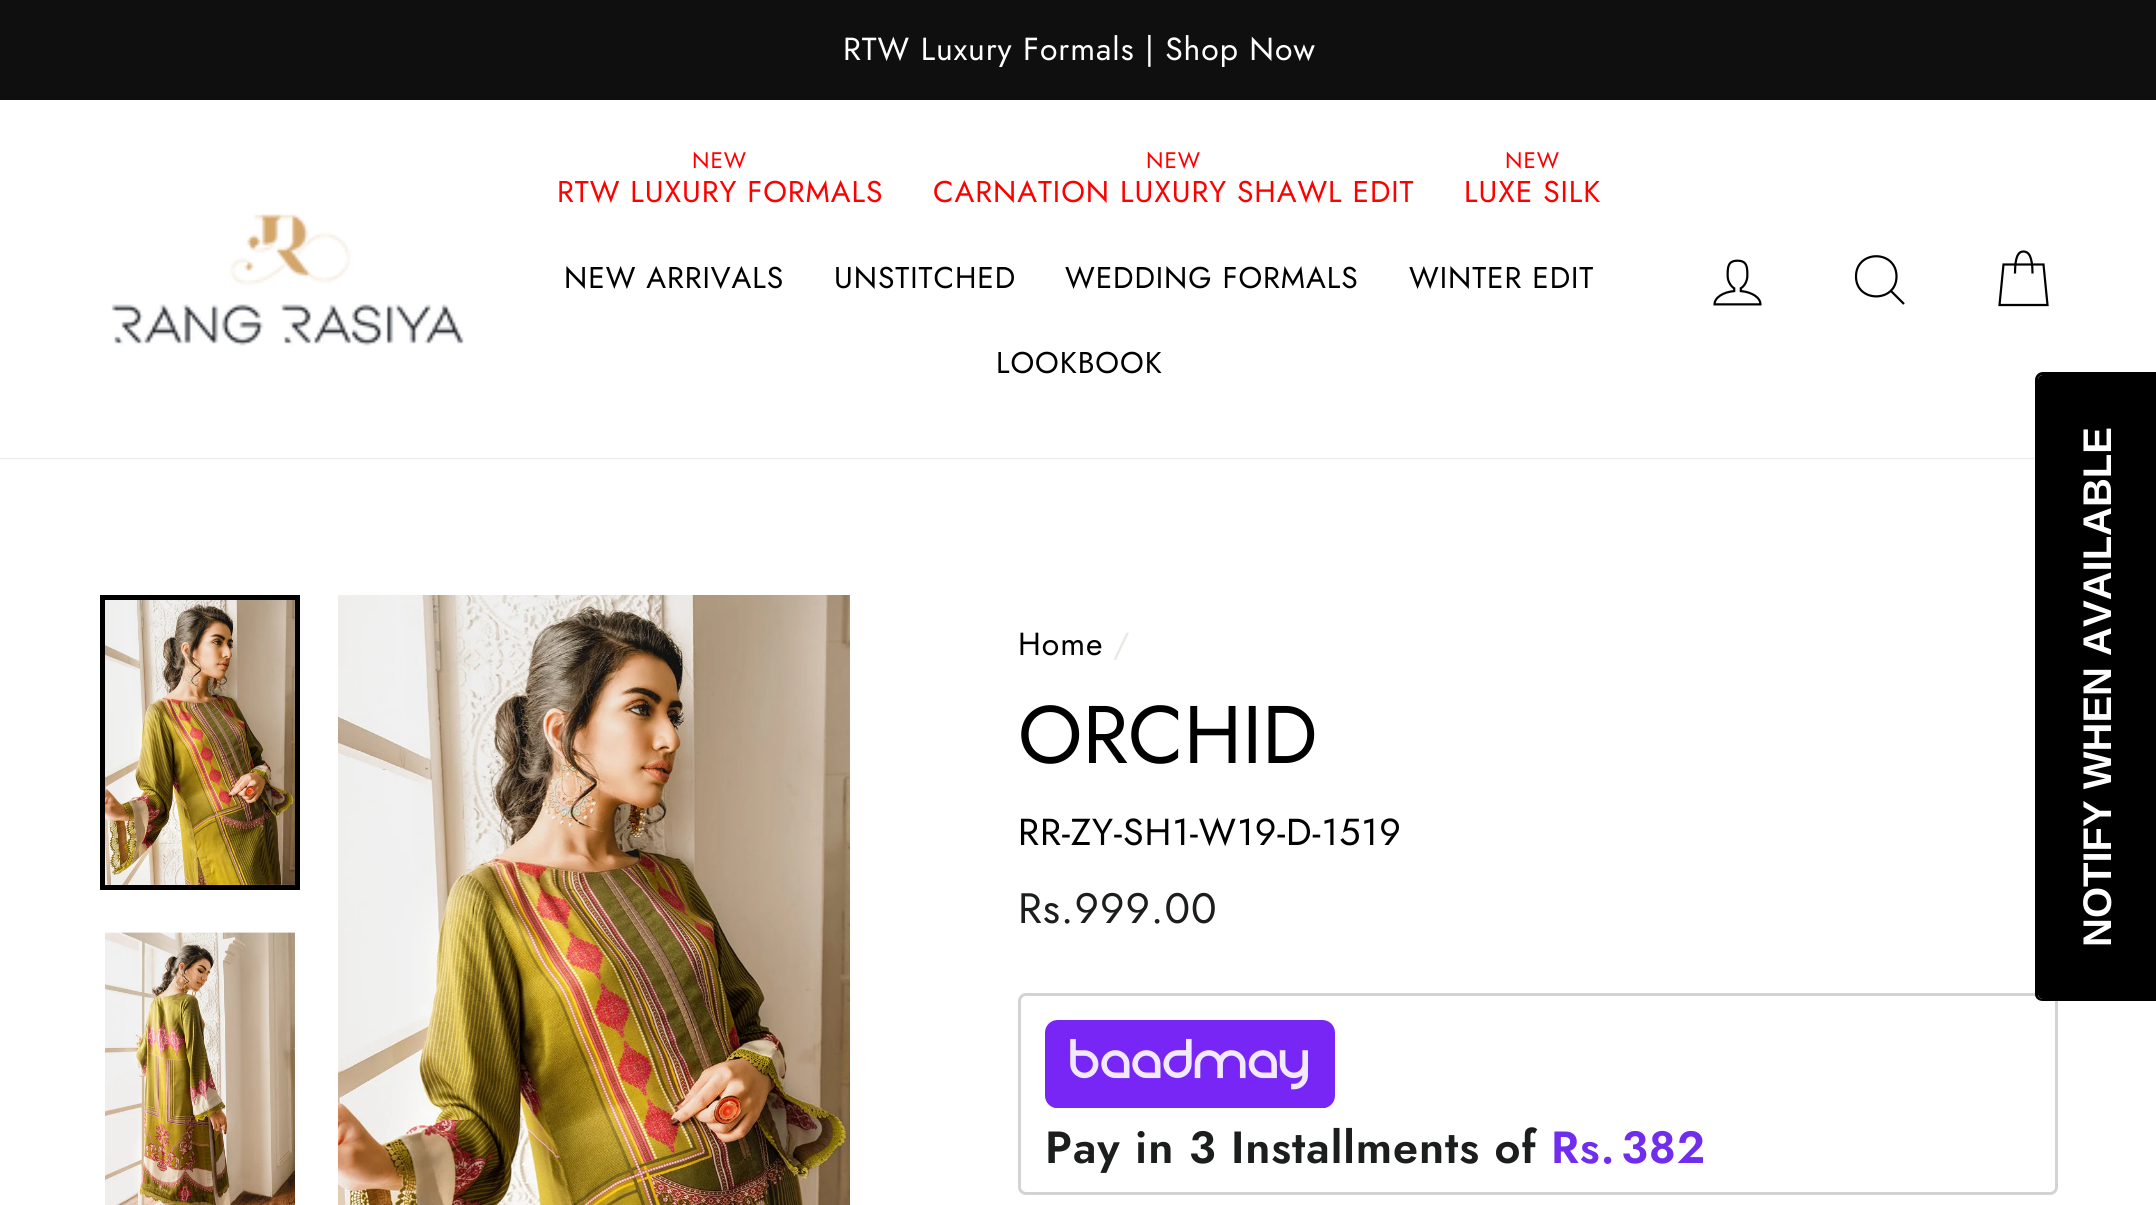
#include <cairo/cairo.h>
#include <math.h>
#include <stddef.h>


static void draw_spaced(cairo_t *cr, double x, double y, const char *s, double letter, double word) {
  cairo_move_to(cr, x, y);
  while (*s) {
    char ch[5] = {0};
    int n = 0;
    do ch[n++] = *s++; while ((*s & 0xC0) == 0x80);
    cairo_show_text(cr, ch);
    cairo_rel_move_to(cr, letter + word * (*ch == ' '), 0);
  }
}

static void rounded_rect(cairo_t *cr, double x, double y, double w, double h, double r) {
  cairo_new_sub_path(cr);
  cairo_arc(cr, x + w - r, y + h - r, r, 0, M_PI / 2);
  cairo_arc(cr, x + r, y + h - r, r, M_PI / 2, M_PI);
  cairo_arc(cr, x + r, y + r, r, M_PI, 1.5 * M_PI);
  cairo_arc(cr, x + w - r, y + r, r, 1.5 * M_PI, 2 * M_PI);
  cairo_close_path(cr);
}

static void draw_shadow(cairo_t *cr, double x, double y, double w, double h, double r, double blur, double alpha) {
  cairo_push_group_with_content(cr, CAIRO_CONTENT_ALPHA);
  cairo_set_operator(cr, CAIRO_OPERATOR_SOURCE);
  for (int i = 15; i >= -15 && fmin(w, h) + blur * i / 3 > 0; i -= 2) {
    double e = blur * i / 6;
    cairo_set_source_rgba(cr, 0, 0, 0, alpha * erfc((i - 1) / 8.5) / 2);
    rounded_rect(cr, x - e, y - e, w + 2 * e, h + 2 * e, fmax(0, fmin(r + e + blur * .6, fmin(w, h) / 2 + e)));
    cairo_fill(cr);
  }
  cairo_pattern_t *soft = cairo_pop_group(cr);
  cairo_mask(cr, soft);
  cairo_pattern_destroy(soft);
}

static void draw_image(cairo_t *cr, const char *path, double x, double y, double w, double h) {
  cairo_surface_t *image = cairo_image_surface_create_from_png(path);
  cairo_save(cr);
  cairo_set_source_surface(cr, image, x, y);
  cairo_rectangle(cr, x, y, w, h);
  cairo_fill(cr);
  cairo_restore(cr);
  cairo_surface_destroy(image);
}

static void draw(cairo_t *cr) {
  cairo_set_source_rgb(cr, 1, 1, 1);
  cairo_paint(cr);
  cairo_set_source_rgb(cr, 15 / 255.0, 15 / 255.0, 15 / 255.0);
  cairo_rectangle(cr, 0, 0, 2156, 100);
  cairo_fill(cr);
  cairo_set_source_rgb(cr, 0, 0, 0);
  draw_shadow(cr, 0, 100, 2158, 358, 0, 1, 0.2);
  cairo_set_source_rgb(cr, 1, 1, 1);
  cairo_rectangle(cr, 0, 100, 2156, 358);
  cairo_fill(cr);
  draw_image(cr, "images/1.png", 111, 214, 353, 132);
  draw_image(cr, "images/2.png", 1713, 259, 49, 47);
  cairo_new_path(cr);
  cairo_move_to(cr, 1896.5, 276.5);
  cairo_curve_to(cr, 1896.5, 303, 1856, 303, 1856, 276.5);
  cairo_curve_to(cr, 1856, 249.5, 1896.5, 249.5, 1896.5, 276.5);
  cairo_close_path(cr);
  cairo_move_to(cr, 1904, 304);
  cairo_line_to(cr, 1891, 291);
  cairo_set_source_rgb(cr, 0, 0, 0);
  cairo_set_line_width(cr, 2.2);
  cairo_stroke(cr);
  cairo_new_path(cr);
  cairo_move_to(cr, 2015, 273.5);
  cairo_curve_to(cr, 2015, 256, 2018.5, 251.5, 2023.5, 251.5);
  cairo_curve_to(cr, 2028.5, 251.5, 2032.5, 256, 2032.5, 273.5);
  cairo_move_to(cr, 2003.5, 264.5);
  cairo_line_to(cr, 2043.5, 264.5);
  cairo_line_to(cr, 2047.5, 305);
  cairo_line_to(cr, 1999.5, 305);
  cairo_close_path(cr);
  cairo_stroke(cr);
  cairo_rectangle(cr, 102.5, 597.5, 195, 290);
  cairo_set_line_width(cr, 5);
  cairo_stroke(cr);
  draw_image(cr, "images/3.png", 105, 600, 190, 285);
  draw_image(cr, "images/4.png", 105, 932, 190, 273);
  draw_image(cr, "images/5.png", 338, 595, 512, 610);
  rounded_rect(cr, 1019.5, 994.5, 1037, 199, 6.5);
  cairo_set_source_rgb(cr, 211 / 255.0, 211 / 255.0, 211 / 255.0);
  cairo_set_line_width(cr, 3);
  cairo_stroke(cr);
  draw_image(cr, "images/6.png", 1045, 1020, 290, 88);
  cairo_set_source_rgb(cr, 0, 0, 0);
  cairo_new_path(cr);
  cairo_move_to(cr, 2038, 994);
  cairo_line_to(cr, 2038, 380);
  cairo_curve_to(cr, 2038, 377, 2040, 375, 2043, 375);
  cairo_line_to(cr, 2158, 375);
  cairo_line_to(cr, 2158, 999);
  cairo_line_to(cr, 2043, 999);
  cairo_curve_to(cr, 2040, 999, 2038, 997, 2038, 994);
  cairo_close_path(cr);
  cairo_fill(cr);
  cairo_set_fill_rule(cr, CAIRO_FILL_RULE_EVEN_ODD);
  cairo_new_path(cr);
  cairo_move_to(cr, 2035, 994);
  cairo_line_to(cr, 2035, 380);
  cairo_curve_to(cr, 2035, 376, 2038, 372, 2043, 372);
  cairo_line_to(cr, 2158, 372);
  cairo_line_to(cr, 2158, 1001);
  cairo_line_to(cr, 2043, 1001);
  cairo_curve_to(cr, 2038, 1001, 2035, 998, 2035, 994);
  cairo_close_path(cr);
  cairo_move_to(cr, 2038, 994);
  cairo_line_to(cr, 2038, 380);
  cairo_curve_to(cr, 2038, 377, 2040, 375, 2043, 375);
  cairo_line_to(cr, 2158, 375);
  cairo_line_to(cr, 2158, 999);
  cairo_line_to(cr, 2043, 999);
  cairo_curve_to(cr, 2040, 999, 2038, 997, 2038, 994);
  cairo_close_path(cr);
  cairo_fill(cr);
  cairo_select_font_face(cr, "Jost", CAIRO_FONT_SLANT_NORMAL, CAIRO_FONT_WEIGHT_NORMAL);
  cairo_set_font_size(cr, 31.9);
  cairo_set_source_rgb(cr, 1, 1, 1);
  draw_spaced(cr, 843, 60, "RTW Luxury Formals | Shop Now", 0.95, 0);
  cairo_set_font_size(cr, 22.5);
  cairo_set_source_rgb(cr, 1, 0, 0);
  draw_spaced(cr, 692, 168, "NEW", 0.95, 0);
  cairo_set_font_size(cr, 30);
  draw_spaced(cr, 557, 202, "RTW LUXURY FORMALS", 0.95, 0);
  cairo_set_font_size(cr, 22.5);
  draw_spaced(cr, 1146, 168, "NEW", 0.95, 0);
  cairo_set_font_size(cr, 30);
  draw_spaced(cr, 933, 202, "CARNATION LUXURY SHAWL EDIT", 0.95, 0);
  cairo_set_font_size(cr, 22.5);
  draw_spaced(cr, 1505, 168, "NEW", 0.95, 0);
  cairo_set_font_size(cr, 30);
  draw_spaced(cr, 1464, 202, "LUXE SILK", 0.95, 0);
  cairo_set_source_rgb(cr, 0, 0, 0);
  draw_spaced(cr, 564, 288, "NEW ARRIVALS", 0.95, 0);
  draw_spaced(cr, 834, 288, "UNSTITCHED", 0.95, 0);
  draw_spaced(cr, 1065, 288, "WEDDING FORMALS", 0.95, 0);
  draw_spaced(cr, 1409, 288, "WINTER EDIT", 0.95, 0);
  draw_spaced(cr, 996, 373, "LOOKBOOK", 0.95, 0);
  cairo_set_font_size(cr, 31.9);
  draw_spaced(cr, 1018, 655, "Home", 0.95, 0);
  cairo_set_source_rgb(cr, 232 / 255.0, 232 / 255.0, 225 / 255.0);
  draw_spaced(cr, 1113, 655, "/", 0.95, 0);
  cairo_set_font_size(cr, 81.5);
  cairo_set_source_rgb(cr, 0, 0, 0);
  cairo_move_to(cr, 1018, 763);
  cairo_show_text(cr, "ORCHID");
  cairo_set_font_size(cr, 37.5);
  draw_spaced(cr, 1018, 845, "RR-ZY-SH1-W19-D-1519", 0.95, 0);
  cairo_set_font_size(cr, 42.5);
  cairo_set_source_rgb(cr, 28 / 255.0, 29 / 255.0, 29 / 255.0);
  draw_spaced(cr, 1018, 923, "Rs.999.00", 0.95, 0);
  cairo_select_font_face(cr, "Jost SemiBold", CAIRO_FONT_SLANT_NORMAL, CAIRO_FONT_WEIGHT_NORMAL);
  cairo_set_font_size(cr, 45);
  draw_spaced(cr, 1045, 1163, "Pay in 3 Installments of", 0.95, 0);
  cairo_set_source_rgb(cr, 112 / 255.0, 45 / 255.0, 237 / 255.0);
  draw_spaced(cr, 1551, 1163, "Rs.", 0.95, 0);
  draw_spaced(cr, 1621, 1163, "382", 0.95, 0);
  cairo_select_font_face(cr, "Liberation Sans", CAIRO_FONT_SLANT_NORMAL, CAIRO_FONT_WEIGHT_BOLD);
  cairo_set_font_size(cr, 40);
  cairo_set_source_rgb(cr, 1, 1, 1);
  cairo_save(cr);
  cairo_translate(cr, 2111, 947);
  cairo_rotate(cr, -90 * M_PI / 180);
  cairo_move_to(cr, 0, 0);
  cairo_show_text(cr, "NOTIFY WHEN AVAILABLE");
  cairo_restore(cr);
}

int main(void) {
  cairo_surface_t *surface = cairo_image_surface_create(CAIRO_FORMAT_RGB24, 2156, 1205);
  cairo_t *cr = cairo_create(surface);
  cairo_font_options_t *options = cairo_font_options_create();
  cairo_font_options_set_hint_metrics(options, CAIRO_HINT_METRICS_OFF);
  cairo_font_options_set_hint_style(options, CAIRO_HINT_STYLE_NONE);
  cairo_set_font_options(cr, options);
  cairo_set_miter_limit(cr, 4);
  draw(cr);
  cairo_surface_write_to_png(surface, "out.png");
  cairo_font_options_destroy(options);
  cairo_destroy(cr);
  cairo_surface_destroy(surface);
  return 0;
}
